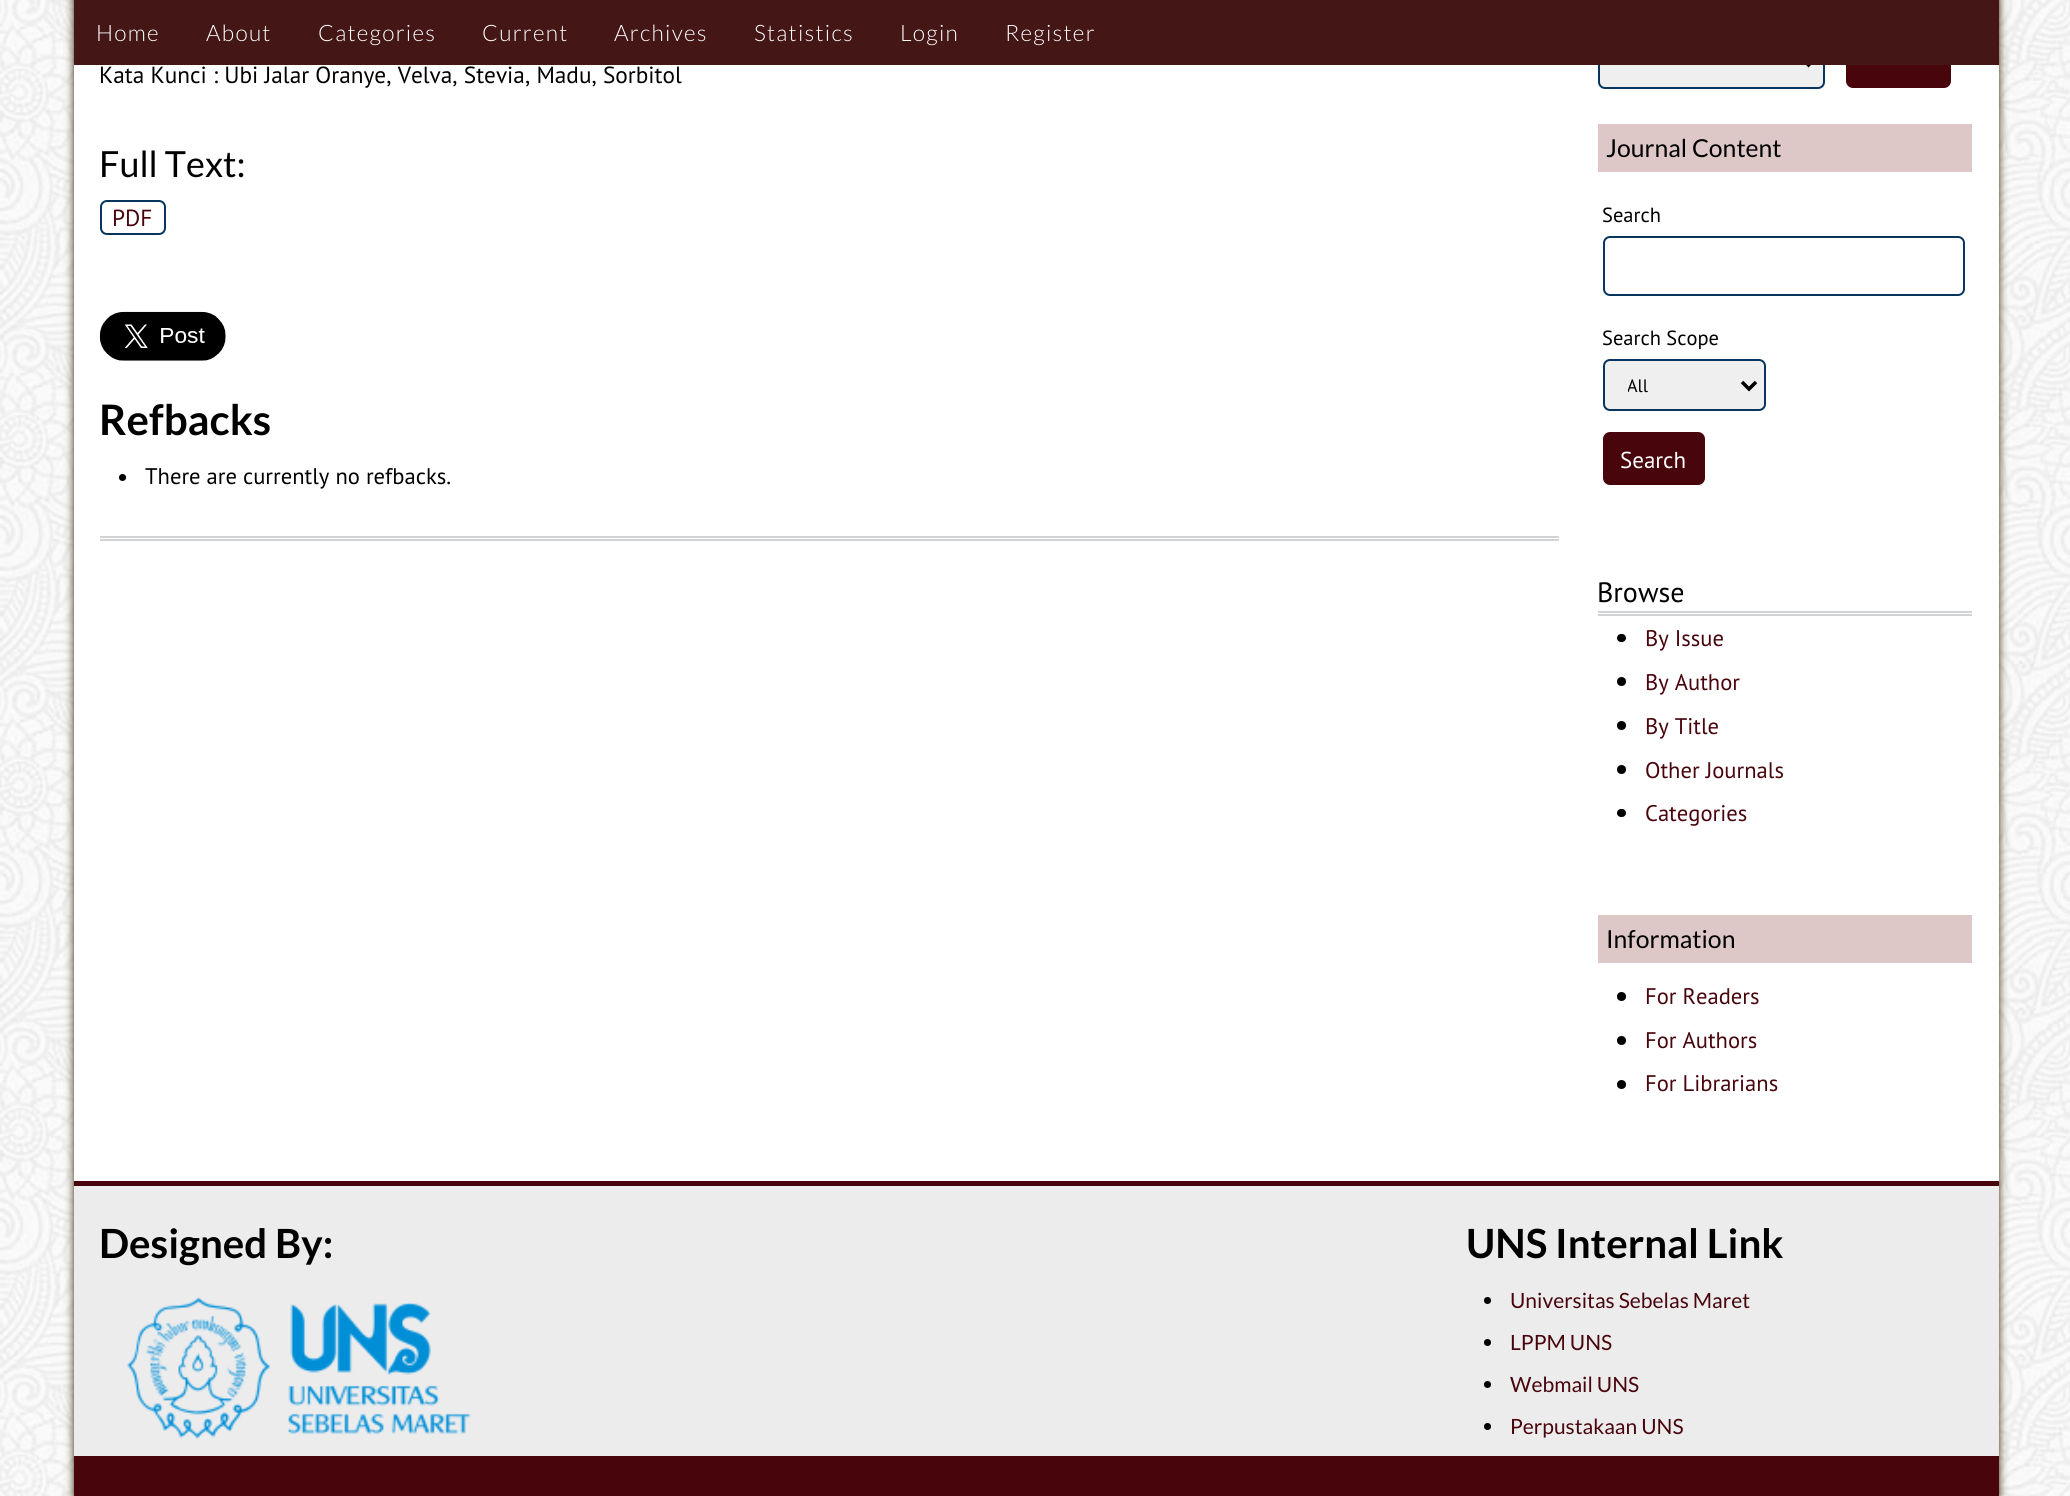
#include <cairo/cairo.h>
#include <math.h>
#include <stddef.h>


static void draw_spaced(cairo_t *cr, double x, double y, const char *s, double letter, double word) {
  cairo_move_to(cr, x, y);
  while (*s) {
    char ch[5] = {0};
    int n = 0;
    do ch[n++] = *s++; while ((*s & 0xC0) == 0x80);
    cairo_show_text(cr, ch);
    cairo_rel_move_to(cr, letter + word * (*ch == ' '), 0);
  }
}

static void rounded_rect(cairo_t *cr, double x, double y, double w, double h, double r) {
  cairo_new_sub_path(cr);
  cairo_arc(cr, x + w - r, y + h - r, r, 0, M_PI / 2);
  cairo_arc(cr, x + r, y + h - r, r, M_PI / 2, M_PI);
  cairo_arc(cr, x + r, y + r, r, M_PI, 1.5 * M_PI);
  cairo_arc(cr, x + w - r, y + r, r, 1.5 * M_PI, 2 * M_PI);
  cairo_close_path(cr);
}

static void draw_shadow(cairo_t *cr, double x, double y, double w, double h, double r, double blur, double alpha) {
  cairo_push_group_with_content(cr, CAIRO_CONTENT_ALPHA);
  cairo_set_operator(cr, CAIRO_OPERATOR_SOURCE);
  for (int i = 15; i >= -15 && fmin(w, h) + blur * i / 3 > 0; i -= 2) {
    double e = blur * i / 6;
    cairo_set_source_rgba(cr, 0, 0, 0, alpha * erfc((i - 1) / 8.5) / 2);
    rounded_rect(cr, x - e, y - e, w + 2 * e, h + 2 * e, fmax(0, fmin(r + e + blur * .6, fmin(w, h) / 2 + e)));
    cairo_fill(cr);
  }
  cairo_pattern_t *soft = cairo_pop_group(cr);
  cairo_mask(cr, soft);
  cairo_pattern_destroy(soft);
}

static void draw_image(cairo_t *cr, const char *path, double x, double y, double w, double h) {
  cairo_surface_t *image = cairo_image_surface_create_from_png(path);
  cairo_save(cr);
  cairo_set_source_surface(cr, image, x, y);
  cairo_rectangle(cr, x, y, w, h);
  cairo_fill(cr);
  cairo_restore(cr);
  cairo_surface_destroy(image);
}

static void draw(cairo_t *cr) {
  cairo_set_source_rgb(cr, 1, 1, 1);
  cairo_paint(cr);
  draw_image(cr, "images/1.png", 0, 0, 2070, 1496);
  cairo_set_source_rgb(cr, 51 / 255.0, 34 / 255.0, 0);
  draw_shadow(cr, 74, -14, 1925, 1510, 0, 4.5, 1);
  cairo_set_source_rgb(cr, 1, 1, 1);
  cairo_rectangle(cr, 74, 65, 1925, 1116);
  cairo_fill(cr);
  cairo_set_source_rgb(cr, 239 / 255.0, 239 / 255.0, 239 / 255.0);
  rounded_rect(cr, 1599, 36, 225, 52, 6);
  cairo_fill_preserve(cr);
  cairo_set_source_rgb(cr, 7 / 255.0, 53 / 255.0, 94 / 255.0);
  cairo_stroke(cr);
  cairo_new_path(cr);
  cairo_move_to(cr, 1801.5, 58);
  cairo_line_to(cr, 1808.5, 65);
  cairo_line_to(cr, 1815.5, 58);
  cairo_set_source_rgb(cr, 0, 0, 0);
  cairo_set_line_width(cr, 3.5);
  cairo_stroke(cr);
  cairo_set_source_rgb(cr, 72 / 255.0, 5 / 255.0, 12 / 255.0);
  rounded_rect(cr, 1846, 35, 105, 53, 7);
  cairo_fill(cr);
  cairo_set_source_rgb(cr, 68 / 255.0, 22 / 255.0, 22 / 255.0);
  cairo_rectangle(cr, 74, 0, 1925, 65);
  cairo_fill(cr);
  rounded_rect(cr, 101, 201, 64, 33, 6);
  cairo_set_source_rgb(cr, 7 / 255.0, 53 / 255.0, 94 / 255.0);
  cairo_set_line_width(cr, 2);
  cairo_stroke(cr);
  draw_image(cr, "images/2.png", 99, 311, 127, 50);
  cairo_set_source_rgb(cr, 0, 0, 0);
  cairo_arc(cr, 122.5, 477.5, 3.5, 0, 2 * M_PI);
  cairo_fill(cr);
  cairo_set_source_rgb(cr, 209 / 255.0, 211 / 255.0, 213 / 255.0);
  cairo_rectangle(cr, 100, 536, 1459, 2);
  cairo_fill(cr);
  cairo_rectangle(cr, 100, 539, 1459, 2);
  cairo_fill(cr);
  cairo_set_source_rgb(cr, 221 / 255.0, 199 / 255.0, 199 / 255.0);
  cairo_rectangle(cr, 1598, 124, 374, 48);
  cairo_fill(cr);
  rounded_rect(cr, 1604, 237, 360, 58, 6);
  cairo_set_source_rgb(cr, 7 / 255.0, 53 / 255.0, 94 / 255.0);
  cairo_stroke(cr);
  cairo_set_source_rgb(cr, 239 / 255.0, 239 / 255.0, 239 / 255.0);
  rounded_rect(cr, 1604, 360, 161, 50, 6);
  cairo_fill_preserve(cr);
  cairo_set_source_rgb(cr, 7 / 255.0, 53 / 255.0, 94 / 255.0);
  cairo_stroke(cr);
  cairo_new_path(cr);
  cairo_move_to(cr, 1742, 382);
  cairo_line_to(cr, 1749, 389);
  cairo_line_to(cr, 1756, 382);
  cairo_set_source_rgb(cr, 0, 0, 0);
  cairo_set_line_width(cr, 3.5);
  cairo_stroke(cr);
  cairo_set_source_rgb(cr, 72 / 255.0, 5 / 255.0, 12 / 255.0);
  rounded_rect(cr, 1603, 432, 102, 53, 7);
  cairo_fill(cr);
  cairo_set_source_rgb(cr, 209 / 255.0, 211 / 255.0, 213 / 255.0);
  cairo_rectangle(cr, 1598, 611, 374, 2);
  cairo_fill(cr);
  cairo_rectangle(cr, 1598, 614, 374, 2);
  cairo_fill(cr);
  cairo_set_source_rgb(cr, 0, 0, 0);
  rounded_rect(cr, 1617, 634, 9, 8, 4);
  cairo_fill(cr);
  cairo_arc(cr, 1621.5, 681.5, 4.5, 0, 2 * M_PI);
  cairo_fill(cr);
  cairo_arc(cr, 1621.5, 725.5, 4.5, 0, 2 * M_PI);
  cairo_fill(cr);
  cairo_arc(cr, 1621.5, 769.5, 4.5, 0, 2 * M_PI);
  cairo_fill(cr);
  rounded_rect(cr, 1617, 809, 9, 8, 4);
  cairo_fill(cr);
  cairo_set_source_rgb(cr, 221 / 255.0, 199 / 255.0, 199 / 255.0);
  cairo_rectangle(cr, 1598, 915, 374, 48);
  cairo_fill(cr);
  cairo_set_source_rgb(cr, 0, 0, 0);
  cairo_arc(cr, 1621.5, 996.5, 4.5, 0, 2 * M_PI);
  cairo_fill(cr);
  cairo_arc(cr, 1621.5, 1040.5, 4.5, 0, 2 * M_PI);
  cairo_fill(cr);
  cairo_arc(cr, 1621.5, 1084.5, 4.5, 0, 2 * M_PI);
  cairo_fill(cr);
  cairo_set_source_rgb(cr, 236 / 255.0, 236 / 255.0, 237 / 255.0);
  cairo_rectangle(cr, 74, 1186, 1925, 270);
  cairo_fill(cr);
  cairo_set_source_rgb(cr, 72 / 255.0, 5 / 255.0, 12 / 255.0);
  cairo_rectangle(cr, 74, 1181, 1925, 5);
  cairo_fill(cr);
  draw_image(cr, "images/3.png", 127, 1296, 344, 144);
  cairo_set_source_rgb(cr, 0, 0, 0);
  cairo_arc(cr, 1487.5, 1300.5, 3.5, 0, 2 * M_PI);
  cairo_fill(cr);
  cairo_arc(cr, 1487.5, 1342.5, 3.5, 0, 2 * M_PI);
  cairo_fill(cr);
  cairo_arc(cr, 1487.5, 1384.5, 3.5, 0, 2 * M_PI);
  cairo_fill(cr);
  cairo_arc(cr, 1487.5, 1426.5, 3.5, 0, 2 * M_PI);
  cairo_fill(cr);
  cairo_set_source_rgb(cr, 72 / 255.0, 5 / 255.0, 12 / 255.0);
  cairo_rectangle(cr, 74, 1456, 1925, 40);
  cairo_fill(cr);
  cairo_select_font_face(cr, "Lato Light", CAIRO_FONT_SLANT_NORMAL, CAIRO_FONT_WEIGHT_NORMAL);
  cairo_set_font_size(cr, 22.6);
  cairo_set_source_rgb(cr, 1, 1, 1);
  draw_spaced(cr, 96, 41, "Home", 1.25, 0);
  draw_spaced(cr, 206, 41, "About", 1.25, 0);
  draw_spaced(cr, 318, 41, "Categories", 1.25, 0);
  draw_spaced(cr, 482, 41, "Current", 1.25, 0);
  draw_spaced(cr, 614, 41, "Archives", 1.25, 0);
  draw_spaced(cr, 754, 41, "Statistics", 1.25, 0);
  draw_spaced(cr, 900, 41, "Login", 1.25, 0);
  draw_spaced(cr, 1005, 41, "Register", 1.25, 0);
  cairo_select_font_face(cr, "PT Sans", CAIRO_FONT_SLANT_NORMAL, CAIRO_FONT_WEIGHT_NORMAL);
  cairo_set_font_size(cr, 23.3);
  cairo_set_source_rgb(cr, 0, 0, 0);
  cairo_move_to(cr, 99, 83);
  cairo_show_text(cr, "Kata Kunci : Ubi Jalar Oranye, Velva, Stevia, Madu, Sorbitol");
  cairo_select_font_face(cr, "Lato", CAIRO_FONT_SLANT_NORMAL, CAIRO_FONT_WEIGHT_NORMAL);
  cairo_set_font_size(cr, 36);
  cairo_move_to(cr, 99, 177);
  cairo_show_text(cr, "Full Text:");
  cairo_select_font_face(cr, "PT Sans", CAIRO_FONT_SLANT_NORMAL, CAIRO_FONT_WEIGHT_NORMAL);
  cairo_set_font_size(cr, 23.3);
  cairo_set_source_rgb(cr, 72 / 255.0, 5 / 255.0, 12 / 255.0);
  cairo_move_to(cr, 112, 226);
  cairo_show_text(cr, "PDF");
  cairo_select_font_face(cr, "Lato", CAIRO_FONT_SLANT_NORMAL, CAIRO_FONT_WEIGHT_BOLD);
  cairo_set_font_size(cr, 42);
  cairo_set_source_rgb(cr, 0, 0, 0);
  cairo_move_to(cr, 99, 435);
  cairo_show_text(cr, "Refbacks");
  cairo_select_font_face(cr, "PT Sans", CAIRO_FONT_SLANT_NORMAL, CAIRO_FONT_WEIGHT_NORMAL);
  cairo_set_font_size(cr, 22.6);
  cairo_move_to(cr, 145, 484);
  cairo_show_text(cr, "There are currently no refbacks.");
  cairo_select_font_face(cr, "Lato", CAIRO_FONT_SLANT_NORMAL, CAIRO_FONT_WEIGHT_NORMAL);
  cairo_set_font_size(cr, 24.75);
  cairo_move_to(cr, 1606, 157);
  cairo_show_text(cr, "Journal Content");
  cairo_select_font_face(cr, "PT Sans", CAIRO_FONT_SLANT_NORMAL, CAIRO_FONT_WEIGHT_NORMAL);
  cairo_set_font_size(cr, 20.5);
  cairo_move_to(cr, 1602, 222);
  cairo_show_text(cr, "Search");
  cairo_move_to(cr, 1602, 345);
  cairo_show_text(cr, "Search Scope");
  cairo_save(cr);
  cairo_rectangle(cr, 1628, 371, 92, 28);
  cairo_clip(cr);
  cairo_set_font_size(cr, 18);
  cairo_move_to(cr, 1627, 392);
  cairo_show_text(cr, "All");
  cairo_restore(cr);
  cairo_set_font_size(cr, 23);
  cairo_set_source_rgb(cr, 1, 1, 1);
  cairo_move_to(cr, 1620, 468);
  cairo_show_text(cr, "Search");
  cairo_set_font_size(cr, 28);
  cairo_set_source_rgb(cr, 0, 0, 0);
  cairo_move_to(cr, 1597, 602);
  cairo_show_text(cr, "Browse");
  cairo_set_font_size(cr, 22.6);
  cairo_set_source_rgb(cr, 72 / 255.0, 5 / 255.0, 12 / 255.0);
  cairo_move_to(cr, 1645, 646);
  cairo_show_text(cr, "By Issue");
  cairo_move_to(cr, 1645, 690);
  cairo_show_text(cr, "By Author");
  cairo_move_to(cr, 1645, 734);
  cairo_show_text(cr, "By Title");
  cairo_move_to(cr, 1645, 778);
  cairo_show_text(cr, "Other Journals");
  cairo_move_to(cr, 1645, 821);
  cairo_show_text(cr, "Categories");
  cairo_select_font_face(cr, "Lato", CAIRO_FONT_SLANT_NORMAL, CAIRO_FONT_WEIGHT_NORMAL);
  cairo_set_font_size(cr, 24.75);
  cairo_set_source_rgb(cr, 0, 0, 0);
  cairo_move_to(cr, 1606, 948);
  cairo_show_text(cr, "Information");
  cairo_select_font_face(cr, "PT Sans", CAIRO_FONT_SLANT_NORMAL, CAIRO_FONT_WEIGHT_NORMAL);
  cairo_set_font_size(cr, 22.6);
  cairo_set_source_rgb(cr, 72 / 255.0, 5 / 255.0, 12 / 255.0);
  cairo_move_to(cr, 1645, 1004);
  cairo_show_text(cr, "For Readers");
  cairo_move_to(cr, 1645, 1048);
  cairo_show_text(cr, "For Authors");
  cairo_move_to(cr, 1645, 1091);
  cairo_show_text(cr, "For Librarians");
  cairo_select_font_face(cr, "Lato", CAIRO_FONT_SLANT_NORMAL, CAIRO_FONT_WEIGHT_BOLD);
  cairo_set_font_size(cr, 40.25);
  cairo_set_source_rgb(cr, 0, 0, 0);
  cairo_move_to(cr, 99, 1258);
  cairo_show_text(cr, "Designed By:");
  cairo_move_to(cr, 1466, 1258);
  cairo_show_text(cr, "UNS Internal Link");
  cairo_select_font_face(cr, "Lato", CAIRO_FONT_SLANT_NORMAL, CAIRO_FONT_WEIGHT_NORMAL);
  cairo_set_font_size(cr, 21);
  cairo_set_source_rgb(cr, 72 / 255.0, 5 / 255.0, 12 / 255.0);
  cairo_move_to(cr, 1510, 1308);
  cairo_show_text(cr, "Universitas Sebelas Maret");
  cairo_move_to(cr, 1510, 1350);
  cairo_show_text(cr, "LPPM UNS");
  cairo_move_to(cr, 1510, 1392);
  cairo_show_text(cr, "Webmail UNS");
  cairo_move_to(cr, 1510, 1434);
  cairo_show_text(cr, "Perpustakaan UNS");
}

int main(void) {
  cairo_surface_t *surface = cairo_image_surface_create(CAIRO_FORMAT_RGB24, 2070, 1496);
  cairo_t *cr = cairo_create(surface);
  cairo_font_options_t *options = cairo_font_options_create();
  cairo_font_options_set_hint_metrics(options, CAIRO_HINT_METRICS_OFF);
  cairo_font_options_set_hint_style(options, CAIRO_HINT_STYLE_NONE);
  cairo_set_font_options(cr, options);
  cairo_set_miter_limit(cr, 4);
  draw(cr);
  cairo_surface_write_to_png(surface, "out.png");
  cairo_font_options_destroy(options);
  cairo_destroy(cr);
  cairo_surface_destroy(surface);
  return 0;
}
